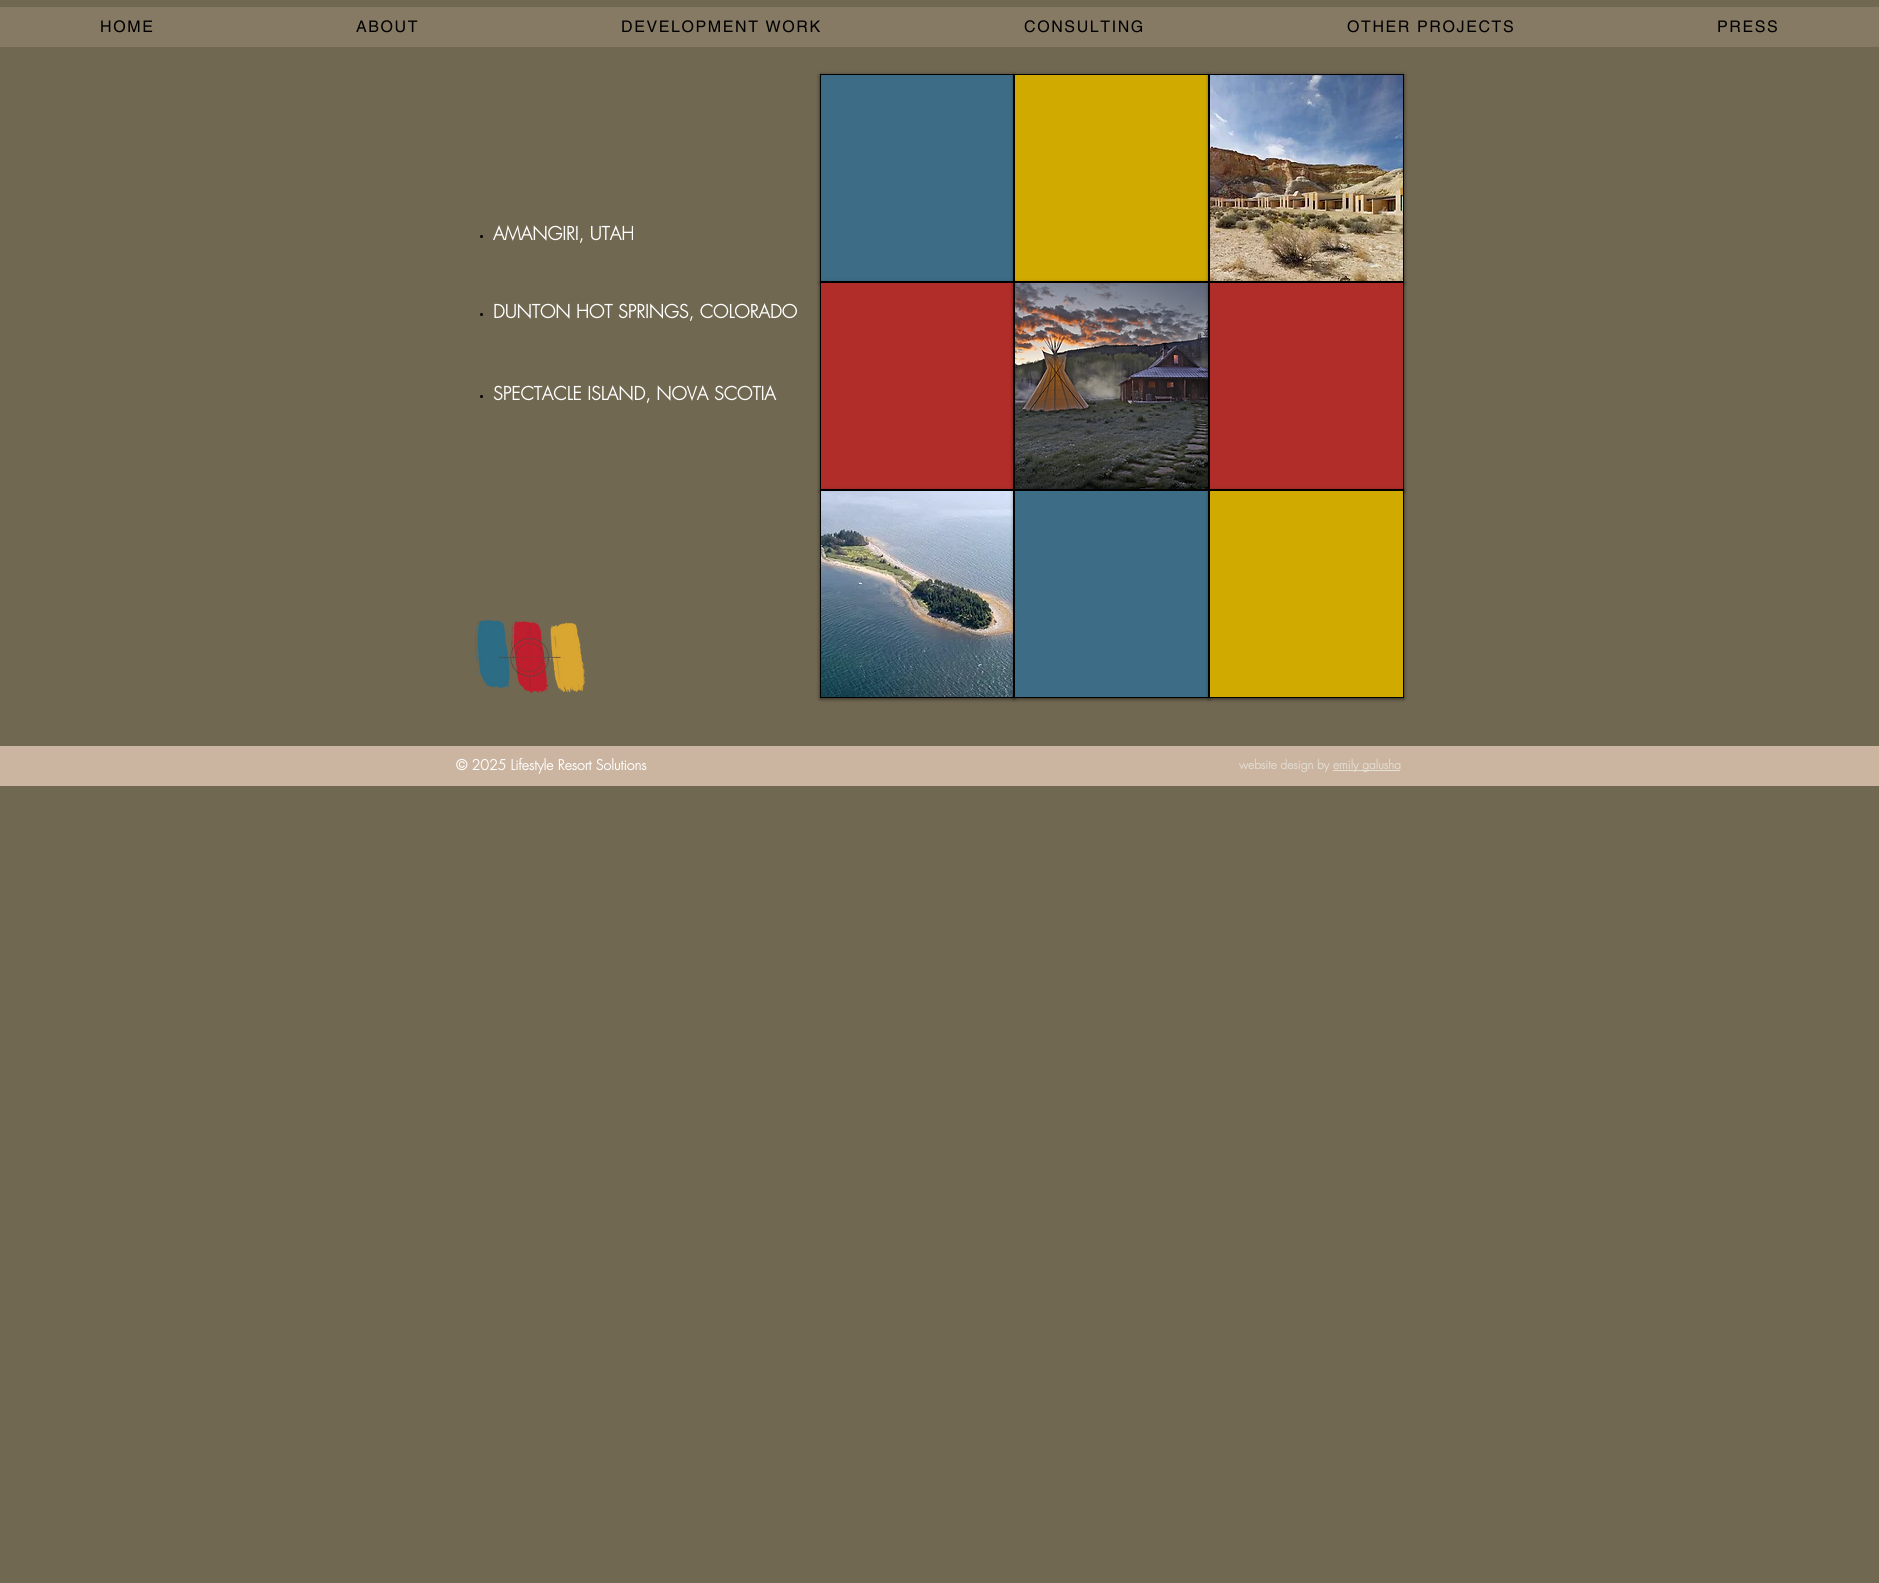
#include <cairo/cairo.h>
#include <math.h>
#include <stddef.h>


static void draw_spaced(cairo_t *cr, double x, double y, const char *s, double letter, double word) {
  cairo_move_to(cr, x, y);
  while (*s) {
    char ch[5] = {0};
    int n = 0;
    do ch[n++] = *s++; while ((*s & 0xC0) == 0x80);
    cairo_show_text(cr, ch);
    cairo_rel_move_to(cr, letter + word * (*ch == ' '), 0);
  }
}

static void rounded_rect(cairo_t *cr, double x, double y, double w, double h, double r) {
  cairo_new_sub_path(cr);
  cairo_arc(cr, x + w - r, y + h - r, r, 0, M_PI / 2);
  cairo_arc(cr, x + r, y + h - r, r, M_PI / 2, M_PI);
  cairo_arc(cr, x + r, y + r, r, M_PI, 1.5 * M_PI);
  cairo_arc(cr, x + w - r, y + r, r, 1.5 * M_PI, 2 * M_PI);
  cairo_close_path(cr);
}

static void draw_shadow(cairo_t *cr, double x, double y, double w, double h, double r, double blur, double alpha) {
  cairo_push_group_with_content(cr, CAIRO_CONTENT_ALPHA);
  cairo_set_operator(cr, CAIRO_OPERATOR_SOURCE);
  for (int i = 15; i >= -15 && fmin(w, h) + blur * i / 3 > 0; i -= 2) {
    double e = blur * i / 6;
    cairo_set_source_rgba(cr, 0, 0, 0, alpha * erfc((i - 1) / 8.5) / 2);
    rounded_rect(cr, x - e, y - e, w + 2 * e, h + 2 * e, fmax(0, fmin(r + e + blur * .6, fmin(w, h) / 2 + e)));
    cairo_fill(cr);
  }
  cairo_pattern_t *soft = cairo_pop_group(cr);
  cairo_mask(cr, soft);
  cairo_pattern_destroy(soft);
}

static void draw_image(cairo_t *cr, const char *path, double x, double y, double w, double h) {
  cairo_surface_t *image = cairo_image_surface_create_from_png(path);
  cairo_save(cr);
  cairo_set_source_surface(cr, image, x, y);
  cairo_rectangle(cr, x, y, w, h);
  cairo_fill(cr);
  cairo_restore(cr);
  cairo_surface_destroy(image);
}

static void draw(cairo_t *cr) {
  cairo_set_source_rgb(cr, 113 / 255.0, 104 / 255.0, 82 / 255.0);
  cairo_paint(cr);
  cairo_set_source_rgb(cr, 135 / 255.0, 122 / 255.0, 101 / 255.0);
  cairo_rectangle(cr, 0, 7, 1879, 40);
  cairo_fill(cr);
  cairo_set_source_rgb(cr, 0, 0, 0);
  cairo_arc(cr, 481.5, 236.5, 1.5, 0, 2 * M_PI);
  cairo_fill(cr);
  cairo_set_source_rgb(cr, 0, 0, 0);
  draw_shadow(cr, 820, 75, 194, 208, 0, 2, 0.6);
  cairo_set_source_rgb(cr, 0, 0, 0);
  cairo_rectangle(cr, 820, 74, 194, 208);
  cairo_fill(cr);
  cairo_set_source_rgb(cr, 61 / 255.0, 109 / 255.0, 134 / 255.0);
  cairo_rectangle(cr, 821, 75, 192, 206);
  cairo_fill(cr);
  cairo_set_source_rgb(cr, 0, 0, 0);
  draw_shadow(cr, 1014, 75, 195, 208, 0, 2, 0.6);
  cairo_set_source_rgb(cr, 0, 0, 0);
  cairo_rectangle(cr, 1014, 74, 195, 208);
  cairo_fill(cr);
  cairo_set_source_rgb(cr, 209 / 255.0, 170 / 255.0, 0);
  cairo_rectangle(cr, 1015, 75, 193, 206);
  cairo_fill(cr);
  cairo_set_source_rgb(cr, 0, 0, 0);
  draw_shadow(cr, 1209, 75, 195, 208, 0, 2, 0.6);
  cairo_set_source_rgb(cr, 0, 0, 0);
  cairo_rectangle(cr, 1209, 74, 195, 208);
  cairo_fill(cr);
  draw_image(cr, "images/1.png", 1210, 75, 193, 206);
  cairo_set_source_rgb(cr, 0, 0, 0);
  draw_shadow(cr, 820, 283, 194, 208, 0, 2, 0.6);
  cairo_set_source_rgb(cr, 0, 0, 0);
  cairo_rectangle(cr, 820, 282, 194, 208);
  cairo_fill(cr);
  cairo_set_source_rgb(cr, 176 / 255.0, 45 / 255.0, 41 / 255.0);
  cairo_rectangle(cr, 821, 283, 192, 206);
  cairo_fill(cr);
  cairo_set_source_rgb(cr, 0, 0, 0);
  draw_shadow(cr, 1014, 283, 195, 208, 0, 2, 0.6);
  cairo_set_source_rgb(cr, 0, 0, 0);
  cairo_rectangle(cr, 1014, 282, 195, 208);
  cairo_fill(cr);
  draw_image(cr, "images/2.png", 1015, 283, 193, 206);
  cairo_set_source_rgb(cr, 0, 0, 0);
  draw_shadow(cr, 1209, 283, 195, 208, 0, 2, 0.6);
  cairo_set_source_rgb(cr, 0, 0, 0);
  cairo_rectangle(cr, 1209, 282, 195, 208);
  cairo_fill(cr);
  cairo_set_source_rgb(cr, 176 / 255.0, 45 / 255.0, 41 / 255.0);
  cairo_rectangle(cr, 1210, 283, 193, 206);
  cairo_fill(cr);
  cairo_set_source_rgb(cr, 0, 0, 0);
  draw_shadow(cr, 820, 491, 194, 208, 0, 2, 0.6);
  cairo_set_source_rgb(cr, 0, 0, 0);
  cairo_rectangle(cr, 820, 490, 194, 208);
  cairo_fill(cr);
  draw_image(cr, "images/3.png", 821, 491, 192, 206);
  cairo_set_source_rgb(cr, 0, 0, 0);
  draw_shadow(cr, 1014, 491, 195, 208, 0, 2, 0.6);
  cairo_set_source_rgb(cr, 0, 0, 0);
  cairo_rectangle(cr, 1014, 490, 195, 208);
  cairo_fill(cr);
  cairo_set_source_rgb(cr, 61 / 255.0, 109 / 255.0, 134 / 255.0);
  cairo_rectangle(cr, 1015, 491, 193, 206);
  cairo_fill(cr);
  cairo_set_source_rgb(cr, 0, 0, 0);
  draw_shadow(cr, 1209, 491, 195, 208, 0, 2, 0.6);
  cairo_set_source_rgb(cr, 0, 0, 0);
  cairo_rectangle(cr, 1209, 490, 195, 208);
  cairo_fill(cr);
  cairo_set_source_rgb(cr, 209 / 255.0, 170 / 255.0, 0);
  cairo_rectangle(cr, 1210, 491, 193, 206);
  cairo_fill(cr);
  cairo_set_source_rgb(cr, 0, 0, 0);
  cairo_arc(cr, 481.5, 314.5, 1.5, 0, 2 * M_PI);
  cairo_fill(cr);
  cairo_arc(cr, 481.5, 396.5, 1.5, 0, 2 * M_PI);
  cairo_fill(cr);
  draw_image(cr, "images/4.png", 475, 620, 110, 73);
  cairo_set_source_rgb(cr, 203 / 255.0, 181 / 255.0, 161 / 255.0);
  cairo_rectangle(cr, 0, 746, 1879, 40);
  cairo_fill(cr);
  cairo_set_source_rgb(cr, 227 / 255.0, 223 / 255.0, 211 / 255.0);
  cairo_rectangle(cr, 1333, 770, 67, 1);
  cairo_fill(cr);
  cairo_select_font_face(cr, "helvetica", CAIRO_FONT_SLANT_NORMAL, CAIRO_FONT_WEIGHT_NORMAL);
  cairo_set_font_size(cr, 16);
  cairo_set_source_rgb(cr, 0, 0, 0);
  draw_spaced(cr, 100, 32, "HOME", 1.6, 0);
  draw_spaced(cr, 356, 32, "ABOUT", 1.6, 0);
  draw_spaced(cr, 621, 32, "DEVELOPMENT WORK", 1.6, 0);
  draw_spaced(cr, 1024, 32, "CONSULTING", 1.6, 0);
  draw_spaced(cr, 1347, 32, "OTHER PROJECTS", 1.6, 0);
  draw_spaced(cr, 1717, 32, "PRESS", 1.6, 0);
  cairo_select_font_face(cr, "futura", CAIRO_FONT_SLANT_NORMAL, CAIRO_FONT_WEIGHT_BOLD);
  cairo_set_font_size(cr, 18);
  cairo_set_source_rgb(cr, 1, 1, 1);
  cairo_move_to(cr, 493, 240);
  cairo_show_text(cr, "AMANGIRI, UTAH");
  cairo_move_to(cr, 493, 318);
  cairo_show_text(cr, "DUNTON HOT SPRINGS, COLORADO");
  cairo_move_to(cr, 493, 400);
  cairo_show_text(cr, "SPECTACLE ISLAND, NOVA SCOTIA");
  cairo_set_font_size(cr, 14);
  cairo_move_to(cr, 456, 770);
  cairo_show_text(cr, "© 2025 Lifestyle Resort Solutions");
  cairo_set_font_size(cr, 12);
  cairo_set_source_rgb(cr, 227 / 255.0, 223 / 255.0, 211 / 255.0);
  cairo_move_to(cr, 1239, 769);
  cairo_show_text(cr, "website design by");
  cairo_move_to(cr, 1333, 769);
  cairo_show_text(cr, "emily galusha");
}

int main(void) {
  cairo_surface_t *surface = cairo_image_surface_create(CAIRO_FORMAT_RGB24, 1879, 1583);
  cairo_t *cr = cairo_create(surface);
  cairo_font_options_t *options = cairo_font_options_create();
  cairo_font_options_set_hint_metrics(options, CAIRO_HINT_METRICS_OFF);
  cairo_font_options_set_hint_style(options, CAIRO_HINT_STYLE_NONE);
  cairo_set_font_options(cr, options);
  cairo_set_miter_limit(cr, 4);
  draw(cr);
  cairo_surface_write_to_png(surface, "out.png");
  cairo_font_options_destroy(options);
  cairo_destroy(cr);
  cairo_surface_destroy(surface);
  return 0;
}
